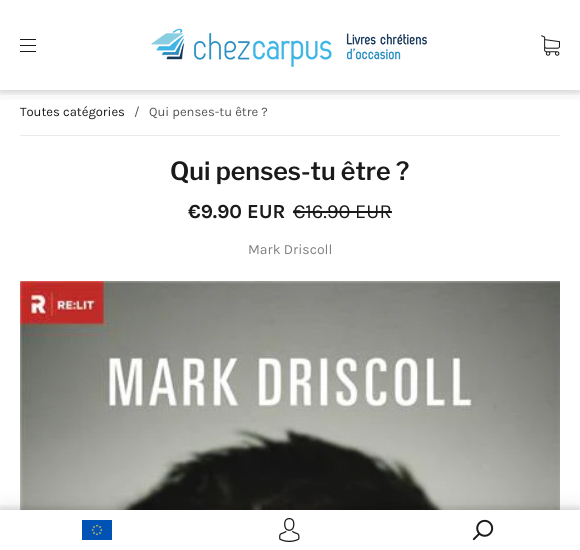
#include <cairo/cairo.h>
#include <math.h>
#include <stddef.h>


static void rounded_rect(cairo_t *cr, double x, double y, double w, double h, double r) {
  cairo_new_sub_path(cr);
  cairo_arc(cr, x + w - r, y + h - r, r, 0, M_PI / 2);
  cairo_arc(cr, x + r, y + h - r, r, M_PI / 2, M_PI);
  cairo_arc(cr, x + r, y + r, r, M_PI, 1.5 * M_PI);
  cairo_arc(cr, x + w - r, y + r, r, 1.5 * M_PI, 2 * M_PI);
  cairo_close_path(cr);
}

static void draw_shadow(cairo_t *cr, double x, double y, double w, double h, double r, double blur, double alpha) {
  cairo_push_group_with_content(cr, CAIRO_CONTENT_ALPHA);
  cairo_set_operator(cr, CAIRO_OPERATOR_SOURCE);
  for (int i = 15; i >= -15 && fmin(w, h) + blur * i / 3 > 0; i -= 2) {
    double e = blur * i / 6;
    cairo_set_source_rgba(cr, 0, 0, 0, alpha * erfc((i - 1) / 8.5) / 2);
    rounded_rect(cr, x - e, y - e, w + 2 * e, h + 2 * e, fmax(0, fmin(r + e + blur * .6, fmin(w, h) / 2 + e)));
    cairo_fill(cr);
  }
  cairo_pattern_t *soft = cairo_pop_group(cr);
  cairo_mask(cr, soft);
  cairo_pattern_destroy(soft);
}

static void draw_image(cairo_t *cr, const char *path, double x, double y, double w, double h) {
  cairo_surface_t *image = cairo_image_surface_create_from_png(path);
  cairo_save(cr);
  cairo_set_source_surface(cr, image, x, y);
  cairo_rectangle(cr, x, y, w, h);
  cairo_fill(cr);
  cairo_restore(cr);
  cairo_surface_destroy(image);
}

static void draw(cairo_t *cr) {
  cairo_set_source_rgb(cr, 1, 1, 1);
  cairo_paint(cr);
  cairo_save(cr);
  cairo_rectangle(cr, 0, 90, 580, 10);
  cairo_clip(cr);
  cairo_set_source_rgb(cr, 0, 0, 0);
  draw_shadow(cr, 0, 6, 580, 90, 0, 10, 0.06);
  cairo_restore(cr);
  cairo_save(cr);
  cairo_rectangle(cr, 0, 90, 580, 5);
  cairo_clip(cr);
  cairo_set_source_rgb(cr, 0, 0, 0);
  draw_shadow(cr, 0, 3, 580, 90, 0, 2.5, 0.12);
  cairo_restore(cr);
  cairo_set_source_rgb(cr, 26 / 255.0, 26 / 255.0, 26 / 255.0);
  cairo_rectangle(cr, 20, 39, 16, 1);
  cairo_fill(cr);
  cairo_rectangle(cr, 20, 45, 16, 1);
  cairo_fill(cr);
  cairo_rectangle(cr, 20, 51, 16, 1);
  cairo_fill(cr);
  draw_image(cr, "images/1.png", 151, 28, 276, 39);
  draw_image(cr, "images/2.png", 541, 35, 19, 21);
  cairo_set_source_rgb(cr, 235 / 255.0, 235 / 255.0, 235 / 255.0);
  cairo_rectangle(cr, 20, 135, 540, 1);
  cairo_fill(cr);
  cairo_set_source_rgb(cr, 26 / 255.0, 26 / 255.0, 26 / 255.0);
  cairo_rectangle(cr, 293, 211, 99, 2);
  cairo_fill(cr);
  draw_image(cr, "images/3.png", 20, 281, 540, 229);
  cairo_set_source_rgb(cr, 0, 0, 0);
  draw_shadow(cr, 0, 504, 580, 40, 0, 10, 0.06);
  draw_shadow(cr, 0, 507, 580, 40, 0, 2.5, 0.12);
  cairo_set_source_rgb(cr, 1, 1, 1);
  cairo_rectangle(cr, 0, 510, 580, 40);
  cairo_fill(cr);
  draw_image(cr, "images/4.png", 82, 520, 30, 20);
  draw_image(cr, "images/5.png", 279, 518, 21, 24);
  draw_image(cr, "images/6.png", 472, 519, 22, 22);
  cairo_select_font_face(cr, "Karla", CAIRO_FONT_SLANT_NORMAL, CAIRO_FONT_WEIGHT_NORMAL);
  cairo_set_font_size(cr, 13);
  cairo_set_source_rgb(cr, 26 / 255.0, 26 / 255.0, 26 / 255.0);
  cairo_move_to(cr, 20, 116);
  cairo_show_text(cr, "Toutes catégories");
  cairo_set_source_rgb(cr, 85 / 255.0, 85 / 255.0, 85 / 255.0);
  cairo_move_to(cr, 134, 116);
  cairo_show_text(cr, "/");
  cairo_move_to(cr, 149, 116);
  cairo_show_text(cr, "Qui penses-tu être ?");
  cairo_select_font_face(cr, "Libre Franklin SemiBold", CAIRO_FONT_SLANT_NORMAL, CAIRO_FONT_WEIGHT_NORMAL);
  cairo_set_font_size(cr, 25);
  cairo_set_source_rgb(cr, 26 / 255.0, 26 / 255.0, 26 / 255.0);
  cairo_move_to(cr, 170, 180);
  cairo_show_text(cr, "Qui penses-tu être ?");
  cairo_select_font_face(cr, "Karla", CAIRO_FONT_SLANT_NORMAL, CAIRO_FONT_WEIGHT_BOLD);
  cairo_set_font_size(cr, 20);
  cairo_move_to(cr, 188, 218);
  cairo_show_text(cr, "€9.90 EUR");
  cairo_select_font_face(cr, "Karla", CAIRO_FONT_SLANT_NORMAL, CAIRO_FONT_WEIGHT_NORMAL);
  cairo_move_to(cr, 293, 218);
  cairo_show_text(cr, "€16.90 EUR");
  cairo_set_font_size(cr, 14);
  cairo_set_source_rgb(cr, 127 / 255.0, 127 / 255.0, 127 / 255.0);
  cairo_move_to(cr, 248, 254);
  cairo_show_text(cr, "Mark Driscoll");
}

int main(void) {
  cairo_surface_t *surface = cairo_image_surface_create(CAIRO_FORMAT_RGB24, 580, 550);
  cairo_t *cr = cairo_create(surface);
  cairo_font_options_t *options = cairo_font_options_create();
  cairo_font_options_set_hint_metrics(options, CAIRO_HINT_METRICS_OFF);
  cairo_font_options_set_hint_style(options, CAIRO_HINT_STYLE_NONE);
  cairo_set_font_options(cr, options);
  cairo_set_miter_limit(cr, 4);
  draw(cr);
  cairo_surface_write_to_png(surface, "out.png");
  cairo_font_options_destroy(options);
  cairo_destroy(cr);
  cairo_surface_destroy(surface);
  return 0;
}
